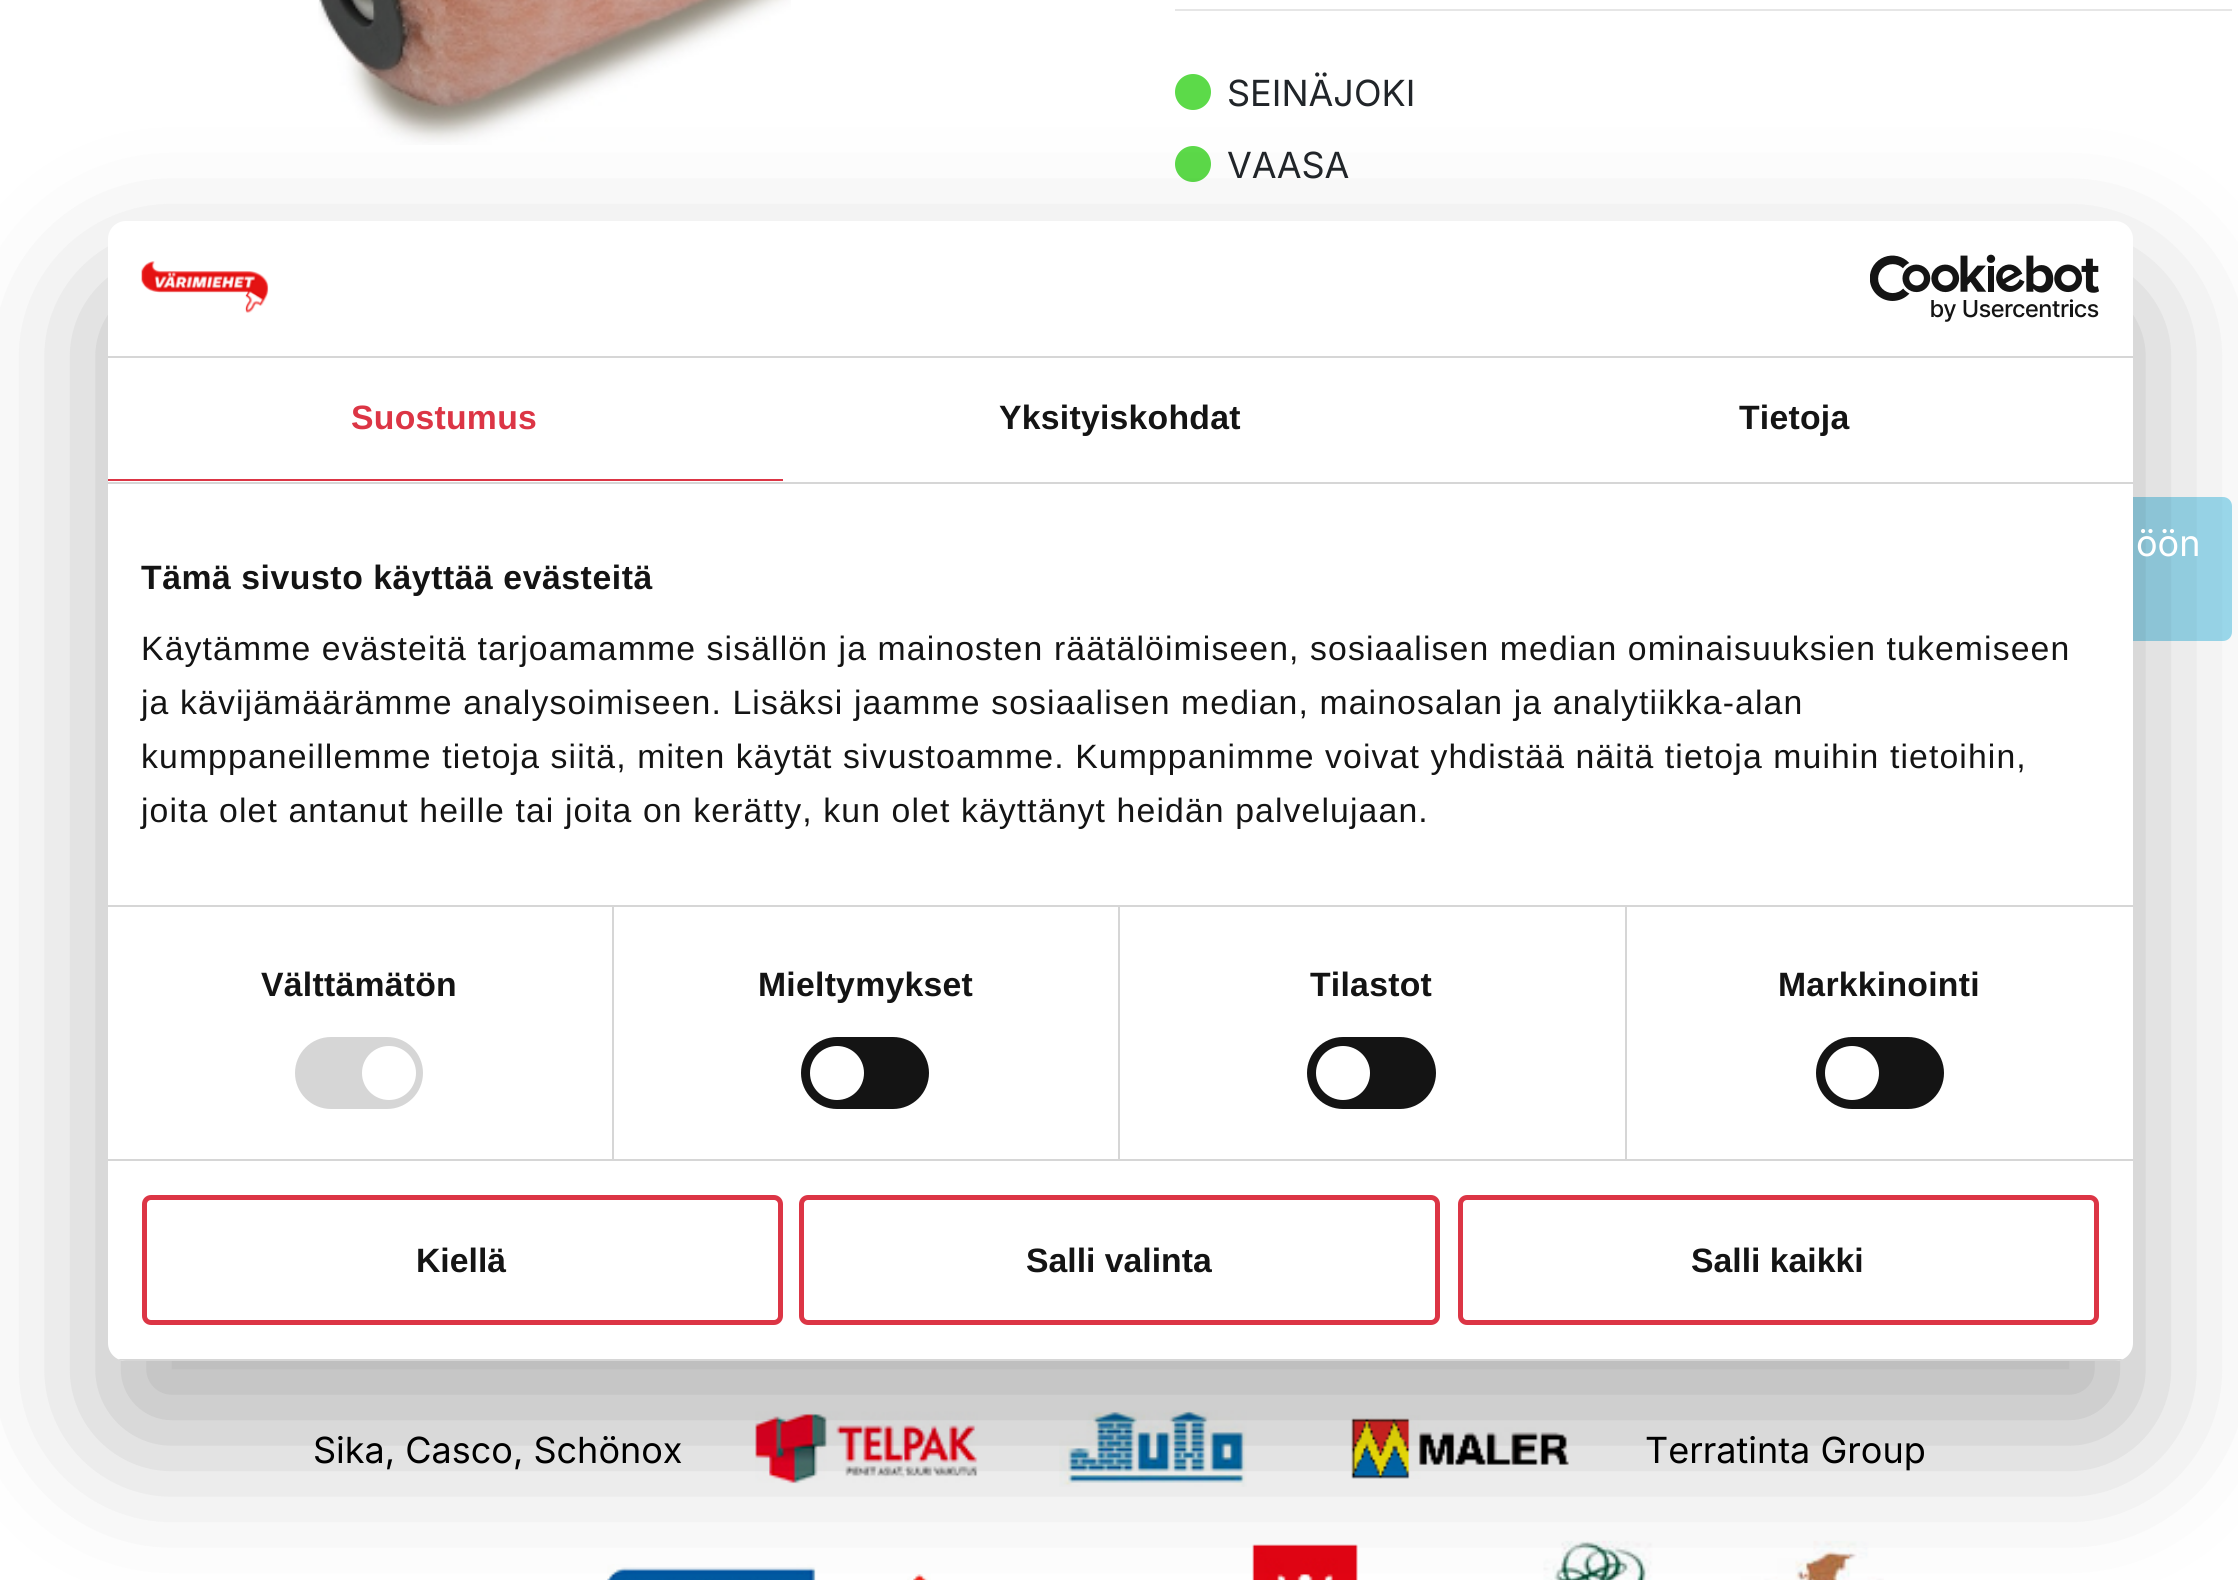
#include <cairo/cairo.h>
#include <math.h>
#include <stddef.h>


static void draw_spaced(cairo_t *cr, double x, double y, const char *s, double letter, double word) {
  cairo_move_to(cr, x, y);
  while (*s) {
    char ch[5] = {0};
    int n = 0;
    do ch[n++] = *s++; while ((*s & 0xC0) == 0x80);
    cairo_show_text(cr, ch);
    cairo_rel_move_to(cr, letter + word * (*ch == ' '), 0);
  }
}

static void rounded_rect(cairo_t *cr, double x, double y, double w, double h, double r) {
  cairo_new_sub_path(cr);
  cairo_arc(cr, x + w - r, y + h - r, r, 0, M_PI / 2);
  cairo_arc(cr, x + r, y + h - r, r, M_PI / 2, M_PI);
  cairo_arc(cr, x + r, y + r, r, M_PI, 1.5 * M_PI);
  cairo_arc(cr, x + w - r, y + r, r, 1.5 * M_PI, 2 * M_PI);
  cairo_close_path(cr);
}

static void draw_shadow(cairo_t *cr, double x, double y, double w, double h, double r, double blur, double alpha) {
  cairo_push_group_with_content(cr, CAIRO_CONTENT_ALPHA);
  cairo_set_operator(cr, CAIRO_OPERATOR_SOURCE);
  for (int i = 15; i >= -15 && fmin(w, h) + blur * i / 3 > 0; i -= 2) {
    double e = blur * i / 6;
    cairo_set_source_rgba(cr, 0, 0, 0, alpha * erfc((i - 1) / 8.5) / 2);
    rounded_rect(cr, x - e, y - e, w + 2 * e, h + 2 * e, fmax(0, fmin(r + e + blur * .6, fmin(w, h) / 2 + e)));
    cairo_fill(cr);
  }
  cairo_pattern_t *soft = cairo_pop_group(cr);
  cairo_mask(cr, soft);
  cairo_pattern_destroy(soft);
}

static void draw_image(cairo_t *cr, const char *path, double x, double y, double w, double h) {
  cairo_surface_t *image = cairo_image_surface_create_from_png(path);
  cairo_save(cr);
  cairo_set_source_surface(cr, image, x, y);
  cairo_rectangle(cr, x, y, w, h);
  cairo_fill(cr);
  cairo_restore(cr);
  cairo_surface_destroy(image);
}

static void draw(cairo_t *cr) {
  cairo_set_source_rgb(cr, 1, 1, 1);
  cairo_paint(cr);
  draw_image(cr, "images/1.png", 318, 0, 473, 145);
  cairo_set_source_rgb(cr, 230 / 255.0, 230 / 255.0, 230 / 255.0);
  cairo_rectangle(cr, 1175, 9, 1057, 2);
  cairo_fill(cr);
  cairo_set_source_rgb(cr, 92 / 255.0, 218 / 255.0, 73 / 255.0);
  cairo_arc(cr, 1193, 92, 18, 0, 2 * M_PI);
  cairo_fill(cr);
  cairo_arc(cr, 1193, 164, 18, 0, 2 * M_PI);
  cairo_fill(cr);
  cairo_set_source_rgb(cr, 157 / 255.0, 220 / 255.0, 240 / 255.0);
  rounded_rect(cr, 1883.5, 499.5, 346, 139, 6.5);
  cairo_fill_preserve(cr);
  cairo_set_line_width(cr, 5);
  cairo_stroke(cr);
  draw_image(cr, "images/2.png", 755, 1411, 223, 73);
  draw_image(cr, "images/3.png", 1059, 1410, 188, 77);
  draw_image(cr, "images/4.png", 1351, 1415, 218, 64);
  draw_image(cr, "images/5.png", 607, 1564, 209, 16);
  draw_image(cr, "images/6.png", 907, 1573, 24, 7);
  draw_image(cr, "images/7.png", 1252, 1544, 106, 36);
  draw_image(cr, "images/8.png", 1543, 1540, 341, 40);
  cairo_set_source_rgb(cr, 0, 0, 0);
  draw_shadow(cr, 108, 293, 2025, 1140, 18, 76.5, 0.3);
  cairo_set_source_rgb(cr, 1, 1, 1);
  rounded_rect(cr, 108, 221, 2025, 1140, 18);
  cairo_fill(cr);
  cairo_set_source_rgb(cr, 214 / 255.0, 214 / 255.0, 214 / 255.0);
  cairo_rectangle(cr, 108, 356, 2025, 2);
  cairo_fill(cr);
  draw_image(cr, "images/9.png", 141, 261, 128, 52);
  draw_image(cr, "images/10.png", 1870, 254, 229, 68);
  cairo_rectangle(cr, 108, 482, 2025, 2);
  cairo_fill(cr);
  cairo_set_source_rgb(cr, 220 / 255.0, 53 / 255.0, 69 / 255.0);
  cairo_rectangle(cr, 108, 479, 675, 2);
  cairo_fill(cr);
  cairo_set_source_rgb(cr, 214 / 255.0, 214 / 255.0, 214 / 255.0);
  cairo_rectangle(cr, 108, 905, 2025, 2);
  cairo_fill(cr);
  cairo_rectangle(cr, 108, 1159, 2025, 2);
  cairo_fill(cr);
  cairo_rectangle(cr, 612, 907, 2, 252);
  cairo_fill(cr);
  rounded_rect(cr, 295, 1037, 128, 72, 36);
  cairo_fill(cr);
  cairo_set_source_rgb(cr, 1, 1, 1);
  cairo_arc(cr, 389, 1073, 27, 0, 2 * M_PI);
  cairo_fill(cr);
  cairo_set_source_rgb(cr, 214 / 255.0, 214 / 255.0, 214 / 255.0);
  cairo_rectangle(cr, 1118, 907, 2, 252);
  cairo_fill(cr);
  cairo_set_source_rgb(cr, 20 / 255.0, 20 / 255.0, 20 / 255.0);
  rounded_rect(cr, 801, 1037, 128, 72, 36);
  cairo_fill(cr);
  cairo_set_source_rgb(cr, 1, 1, 1);
  cairo_arc(cr, 837, 1073, 27, 0, 2 * M_PI);
  cairo_fill(cr);
  cairo_set_source_rgb(cr, 214 / 255.0, 214 / 255.0, 214 / 255.0);
  cairo_rectangle(cr, 1625, 907, 2, 252);
  cairo_fill(cr);
  cairo_set_source_rgb(cr, 20 / 255.0, 20 / 255.0, 20 / 255.0);
  rounded_rect(cr, 1307, 1037, 129, 72, 36);
  cairo_fill(cr);
  cairo_set_source_rgb(cr, 1, 1, 1);
  cairo_arc(cr, 1343, 1073, 27, 0, 2 * M_PI);
  cairo_fill(cr);
  cairo_set_source_rgb(cr, 20 / 255.0, 20 / 255.0, 20 / 255.0);
  rounded_rect(cr, 1816, 1037, 128, 72, 36);
  cairo_fill(cr);
  cairo_set_source_rgb(cr, 1, 1, 1);
  cairo_arc(cr, 1852, 1073, 27, 0, 2 * M_PI);
  cairo_fill(cr);
  cairo_save(cr);
  rounded_rect(cr, 108, 221, 2025, 1140, 18);
  cairo_clip(cr);
  cairo_set_source_rgb(cr, 214 / 255.0, 214 / 255.0, 214 / 255.0);
  cairo_rectangle(cr, 118, 1359, 2005, 2);
  cairo_fill(cr);
  cairo_restore(cr);
  rounded_rect(cr, 144.5, 1197.5, 636, 125, 6.5);
  cairo_set_source_rgb(cr, 220 / 255.0, 53 / 255.0, 69 / 255.0);
  cairo_stroke(cr);
  rounded_rect(cr, 801.5, 1197.5, 636, 125, 6.5);
  cairo_stroke(cr);
  rounded_rect(cr, 1460.5, 1197.5, 636, 125, 6.5);
  cairo_stroke(cr);
  cairo_select_font_face(cr, "Inter", CAIRO_FONT_SLANT_NORMAL, CAIRO_FONT_WEIGHT_NORMAL);
  cairo_set_font_size(cr, 36);
  cairo_set_source_rgb(cr, 33 / 255.0, 37 / 255.0, 41 / 255.0);
  cairo_move_to(cr, 1227, 106);
  cairo_show_text(cr, "SEINÄJOKI");
  cairo_move_to(cr, 1227, 178);
  cairo_show_text(cr, "VAASA");
  cairo_set_source_rgb(cr, 1, 1, 1);
  cairo_move_to(cr, 2136, 556);
  cairo_show_text(cr, "öön");
  cairo_set_source_rgb(cr, 0, 0, 0);
  cairo_move_to(cr, 313, 1463);
  cairo_show_text(cr, "Sika, Casco, Schönox");
  cairo_move_to(cr, 1645, 1463);
  cairo_show_text(cr, "Terratinta Group");
  cairo_select_font_face(cr, "Liberation Sans", CAIRO_FONT_SLANT_NORMAL, CAIRO_FONT_WEIGHT_BOLD);
  cairo_set_font_size(cr, 33.75);
  cairo_set_source_rgb(cr, 220 / 255.0, 53 / 255.0, 69 / 255.0);
  draw_spaced(cr, 351, 429, "Suostumus", 0.25, 0);
  cairo_set_source_rgb(cr, 20 / 255.0, 20 / 255.0, 20 / 255.0);
  draw_spaced(cr, 999, 429, "Yksityiskohdat", 0.25, 0);
  draw_spaced(cr, 1739, 429, "Tietoja", 0.25, 0);
  draw_spaced(cr, 141, 589, "Tämä sivusto käyttää evästeitä", 0.55, 0);
  cairo_select_font_face(cr, "Liberation Sans", CAIRO_FONT_SLANT_NORMAL, CAIRO_FONT_WEIGHT_NORMAL);
  draw_spaced(cr, 141, 660, "Käytämme evästeitä tarjoamamme sisällön ja mainosten räätälöimiseen, sosiaalisen median ominaisuuksien tukemiseen", 1.12, 0);
  draw_spaced(cr, 141, 714, "ja kävijämäärämme analysoimiseen. Lisäksi jaamme sosiaalisen median, mainosalan ja analytiikka-alan", 1.12, 0);
  draw_spaced(cr, 141, 768, "kumppaneillemme tietoja siitä, miten käytät sivustoamme. Kumppanimme voivat yhdistää näitä tietoja muihin tietoihin,", 1.12, 0);
  draw_spaced(cr, 141, 822, "joita olet antanut heille tai joita on kerätty, kun olet käyttänyt heidän palvelujaan.", 1.12, 0);
  cairo_select_font_face(cr, "Liberation Sans", CAIRO_FONT_SLANT_NORMAL, CAIRO_FONT_WEIGHT_BOLD);
  draw_spaced(cr, 261, 996, "Välttämätön", 0.25, 0);
  draw_spaced(cr, 758, 996, "Mieltymykset", 0.25, 0);
  draw_spaced(cr, 1310, 996, "Tilastot", 0.25, 0);
  draw_spaced(cr, 1778, 996, "Markkinointi", 0.25, 0);
  cairo_move_to(cr, 416, 1272);
  cairo_show_text(cr, "Kiellä");
  cairo_move_to(cr, 1026, 1272);
  cairo_show_text(cr, "Salli valinta");
  cairo_move_to(cr, 1691, 1272);
  cairo_show_text(cr, "Salli kaikki");
}

int main(void) {
  cairo_surface_t *surface = cairo_image_surface_create(CAIRO_FORMAT_RGB24, 2238, 1580);
  cairo_t *cr = cairo_create(surface);
  cairo_font_options_t *options = cairo_font_options_create();
  cairo_font_options_set_hint_metrics(options, CAIRO_HINT_METRICS_OFF);
  cairo_font_options_set_hint_style(options, CAIRO_HINT_STYLE_NONE);
  cairo_set_font_options(cr, options);
  cairo_set_miter_limit(cr, 4);
  draw(cr);
  cairo_surface_write_to_png(surface, "out.png");
  cairo_font_options_destroy(options);
  cairo_destroy(cr);
  cairo_surface_destroy(surface);
  return 0;
}
